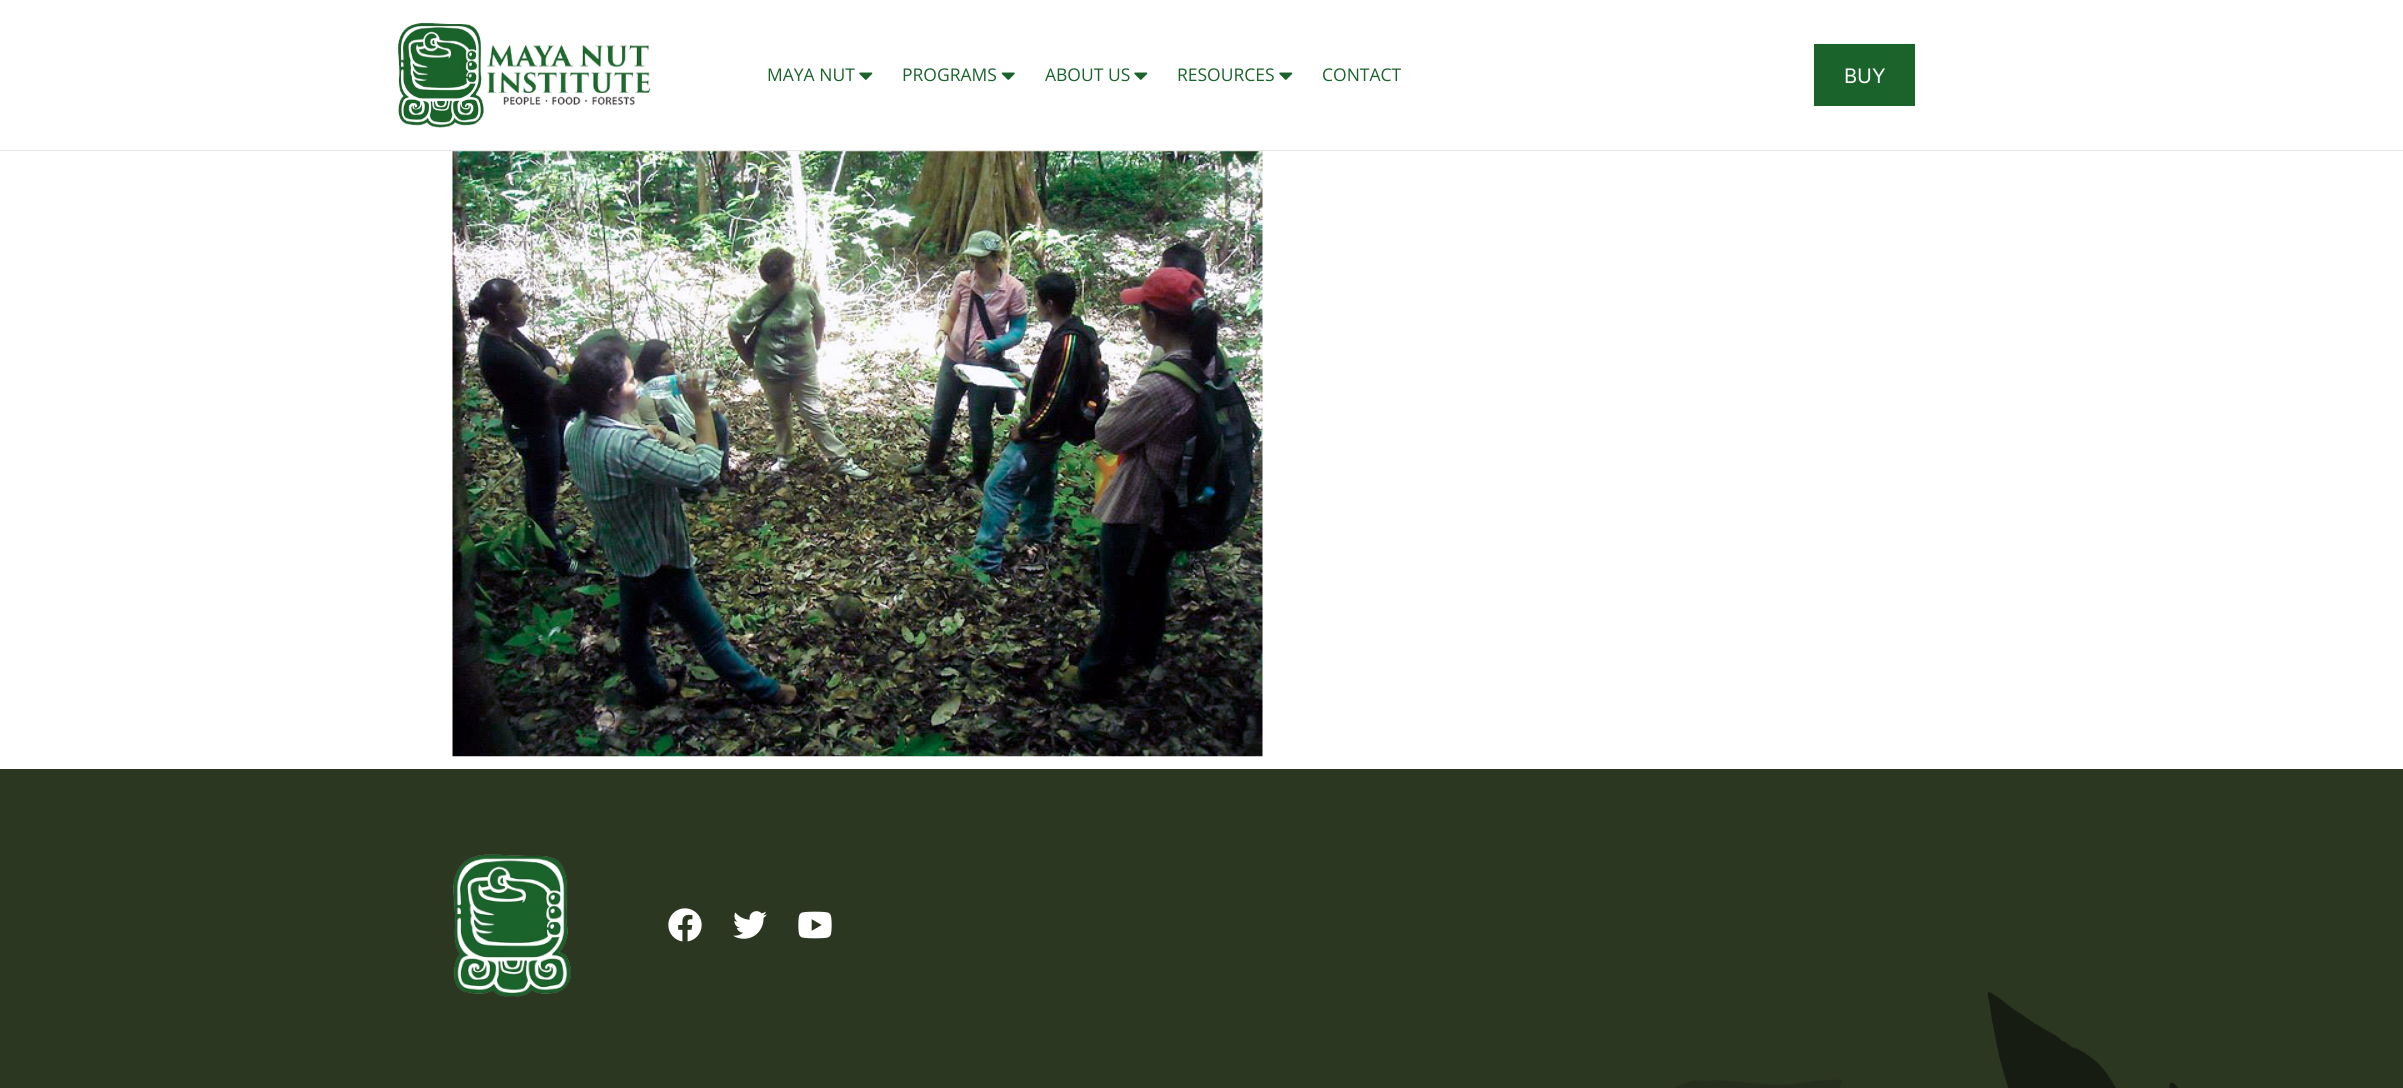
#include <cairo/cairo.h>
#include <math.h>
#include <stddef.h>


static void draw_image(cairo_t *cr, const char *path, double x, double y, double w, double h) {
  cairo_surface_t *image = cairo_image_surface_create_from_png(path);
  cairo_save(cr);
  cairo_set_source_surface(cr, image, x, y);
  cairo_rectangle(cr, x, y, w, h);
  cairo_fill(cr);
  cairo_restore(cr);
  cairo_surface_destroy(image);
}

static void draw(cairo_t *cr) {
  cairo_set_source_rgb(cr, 1, 1, 1);
  cairo_paint(cr);
  cairo_set_source_rgb(cr, 231 / 255.0, 230 / 255.0, 227 / 255.0);
  cairo_rectangle(cr, 0, 150, 2403, 1);
  cairo_fill(cr);
  draw_image(cr, "images/1.png", 397, 22, 253, 106);
  draw_image(cr, "images/2.png", 859, 72, 14, 8);
  draw_image(cr, "images/3.png", 1001, 72, 14, 8);
  draw_image(cr, "images/2.png", 1134, 72, 14, 8);
  draw_image(cr, "images/2.png", 1279, 72, 14, 8);
  cairo_set_source_rgb(cr, 26 / 255.0, 99 / 255.0, 43 / 255.0);
  cairo_rectangle(cr, 1814, 44, 101, 62);
  cairo_fill(cr);
  draw_image(cr, "images/4.png", 452, 151, 811, 606);
  cairo_set_source_rgb(cr, 44 / 255.0, 55 / 255.0, 34 / 255.0);
  cairo_rectangle(cr, 0, 769, 2403, 319);
  cairo_fill(cr);
  draw_image(cr, "images/5.png", 453, 854, 118, 143);
  draw_image(cr, "images/6.png", 668, 908, 34, 34);
  draw_image(cr, "images/7.png", 733, 911, 34, 28);
  draw_image(cr, "images/8.png", 798, 911, 34, 28);
  draw_image(cr, "images/9.png", 1675, 991, 503, 97);
  cairo_select_font_face(cr, "Open Sans", CAIRO_FONT_SLANT_NORMAL, CAIRO_FONT_WEIGHT_NORMAL);
  cairo_set_font_size(cr, 17.5);
  cairo_set_source_rgb(cr, 26 / 255.0, 99 / 255.0, 43 / 255.0);
  cairo_move_to(cr, 767, 81);
  cairo_show_text(cr, "MAYA NUT");
  cairo_move_to(cr, 902, 81);
  cairo_show_text(cr, "PROGRAMS");
  cairo_move_to(cr, 1045, 81);
  cairo_show_text(cr, "ABOUT US");
  cairo_move_to(cr, 1177, 81);
  cairo_show_text(cr, "RESOURCES");
  cairo_move_to(cr, 1322, 81);
  cairo_show_text(cr, "CONTACT");
  cairo_select_font_face(cr, "Inter", CAIRO_FONT_SLANT_NORMAL, CAIRO_FONT_WEIGHT_NORMAL);
  cairo_set_font_size(cr, 20);
  cairo_set_source_rgb(cr, 1, 1, 1);
  cairo_move_to(cr, 1844, 83);
  cairo_show_text(cr, "BUY");
}

int main(void) {
  cairo_surface_t *surface = cairo_image_surface_create(CAIRO_FORMAT_RGB24, 2403, 1088);
  cairo_t *cr = cairo_create(surface);
  cairo_font_options_t *options = cairo_font_options_create();
  cairo_font_options_set_hint_metrics(options, CAIRO_HINT_METRICS_OFF);
  cairo_font_options_set_hint_style(options, CAIRO_HINT_STYLE_NONE);
  cairo_set_font_options(cr, options);
  cairo_set_miter_limit(cr, 4);
  draw(cr);
  cairo_surface_write_to_png(surface, "out.png");
  cairo_font_options_destroy(options);
  cairo_destroy(cr);
  cairo_surface_destroy(surface);
  return 0;
}
